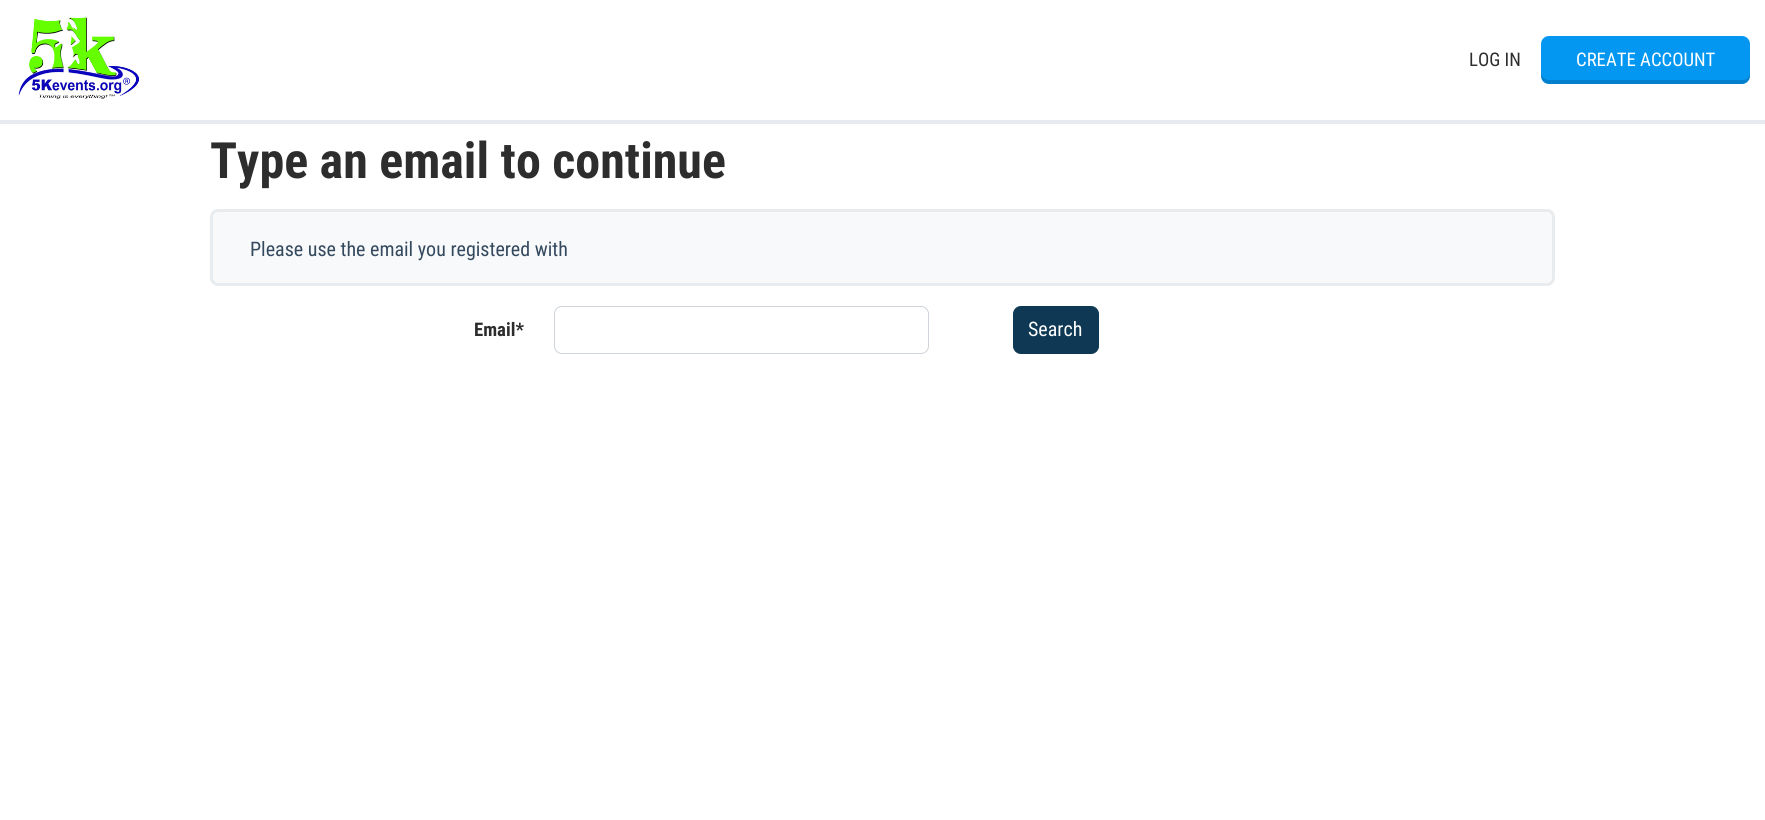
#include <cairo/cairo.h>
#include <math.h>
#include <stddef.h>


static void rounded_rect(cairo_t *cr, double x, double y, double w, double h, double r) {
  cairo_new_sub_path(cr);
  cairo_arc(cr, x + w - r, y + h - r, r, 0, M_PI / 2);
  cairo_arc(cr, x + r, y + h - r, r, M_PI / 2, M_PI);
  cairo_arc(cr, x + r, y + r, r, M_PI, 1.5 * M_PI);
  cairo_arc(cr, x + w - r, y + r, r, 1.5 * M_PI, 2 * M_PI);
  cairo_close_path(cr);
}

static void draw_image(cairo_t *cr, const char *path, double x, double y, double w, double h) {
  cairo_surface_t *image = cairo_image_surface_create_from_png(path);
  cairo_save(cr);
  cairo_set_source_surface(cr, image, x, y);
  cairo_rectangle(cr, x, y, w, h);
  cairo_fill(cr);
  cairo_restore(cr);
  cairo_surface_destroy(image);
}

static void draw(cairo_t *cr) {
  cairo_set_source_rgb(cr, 1, 1, 1);
  cairo_paint(cr);
  cairo_set_source_rgb(cr, 231 / 255.0, 234 / 255.0, 238 / 255.0);
  cairo_rectangle(cr, 0, 120, 1765, 4);
  cairo_fill(cr);
  draw_image(cr, "images/1.png", 18, 17, 121, 82);
  cairo_set_source_rgb(cr, 4 / 255.0, 151 / 255.0, 241 / 255.0);
  rounded_rect(cr, 1541, 36, 209, 48, 8);
  cairo_fill(cr);
  cairo_set_source_rgba(cr, 0, 0, 0, 0.15);
  cairo_new_path(cr);
  cairo_move_to(cr, 1541, 72);
  cairo_line_to(cr, 1541, 76);
  cairo_curve_to(cr, 1541, 80, 1545, 84, 1549, 84);
  cairo_line_to(cr, 1742, 84);
  cairo_curve_to(cr, 1746, 84, 1750, 80, 1750, 76);
  cairo_line_to(cr, 1750, 72);
  cairo_curve_to(cr, 1750, 77, 1747, 80, 1742, 80);
  cairo_line_to(cr, 1549, 80);
  cairo_curve_to(cr, 1545, 80, 1541, 77, 1541, 72);
  cairo_close_path(cr);
  cairo_fill(cr);
  cairo_set_source_rgb(cr, 247 / 255.0, 249 / 255.0, 250 / 255.0);
  rounded_rect(cr, 211.5, 210.5, 1342, 74, 6.5);
  cairo_fill_preserve(cr);
  cairo_set_source_rgb(cr, 233 / 255.0, 236 / 255.0, 239 / 255.0);
  cairo_set_line_width(cr, 3);
  cairo_stroke(cr);
  rounded_rect(cr, 554.5, 306.5, 374, 47, 7.5);
  cairo_set_source_rgb(cr, 206 / 255.0, 212 / 255.0, 218 / 255.0);
  cairo_set_line_width(cr, 1);
  cairo_stroke(cr);
  cairo_set_source_rgb(cr, 15 / 255.0, 56 / 255.0, 84 / 255.0);
  rounded_rect(cr, 1013.5, 306.5, 85, 47, 7.5);
  cairo_fill_preserve(cr);
  cairo_stroke(cr);
  cairo_select_font_face(cr, "Roboto Condensed", CAIRO_FONT_SLANT_NORMAL, CAIRO_FONT_WEIGHT_NORMAL);
  cairo_set_font_size(cr, 18.75);
  cairo_set_source_rgb(cr, 45 / 255.0, 45 / 255.0, 45 / 255.0);
  cairo_move_to(cr, 1469, 66);
  cairo_show_text(cr, "LOG IN");
  cairo_set_source_rgb(cr, 1, 1, 1);
  cairo_move_to(cr, 1576, 66);
  cairo_show_text(cr, "CREATE ACCOUNT");
  cairo_select_font_face(cr, "Roboto Condensed", CAIRO_FONT_SLANT_NORMAL, CAIRO_FONT_WEIGHT_BOLD);
  cairo_set_font_size(cr, 50);
  cairo_set_source_rgb(cr, 45 / 255.0, 45 / 255.0, 45 / 255.0);
  cairo_move_to(cr, 210, 178);
  cairo_show_text(cr, "Type an email to continue");
  cairo_select_font_face(cr, "Roboto Condensed", CAIRO_FONT_SLANT_NORMAL, CAIRO_FONT_WEIGHT_NORMAL);
  cairo_set_font_size(cr, 20);
  cairo_set_source_rgb(cr, 52 / 255.0, 73 / 255.0, 94 / 255.0);
  cairo_move_to(cr, 250, 256);
  cairo_show_text(cr, "Please use the email you registered with");
  cairo_select_font_face(cr, "Roboto Condensed", CAIRO_FONT_SLANT_NORMAL, CAIRO_FONT_WEIGHT_BOLD);
  cairo_set_font_size(cr, 18.75);
  cairo_set_source_rgb(cr, 45 / 255.0, 45 / 255.0, 45 / 255.0);
  cairo_move_to(cr, 474, 336);
  cairo_show_text(cr, "Email*");
  cairo_select_font_face(cr, "Roboto Condensed", CAIRO_FONT_SLANT_NORMAL, CAIRO_FONT_WEIGHT_NORMAL);
  cairo_set_font_size(cr, 20);
  cairo_set_source_rgb(cr, 1, 1, 1);
  cairo_move_to(cr, 1028, 336);
  cairo_show_text(cr, "Search");
}

int main(void) {
  cairo_surface_t *surface = cairo_image_surface_create(CAIRO_FORMAT_RGB24, 1765, 820);
  cairo_t *cr = cairo_create(surface);
  cairo_font_options_t *options = cairo_font_options_create();
  cairo_font_options_set_hint_metrics(options, CAIRO_HINT_METRICS_OFF);
  cairo_font_options_set_hint_style(options, CAIRO_HINT_STYLE_NONE);
  cairo_set_font_options(cr, options);
  cairo_set_miter_limit(cr, 4);
  draw(cr);
  cairo_surface_write_to_png(surface, "out.png");
  cairo_font_options_destroy(options);
  cairo_destroy(cr);
  cairo_surface_destroy(surface);
  return 0;
}
